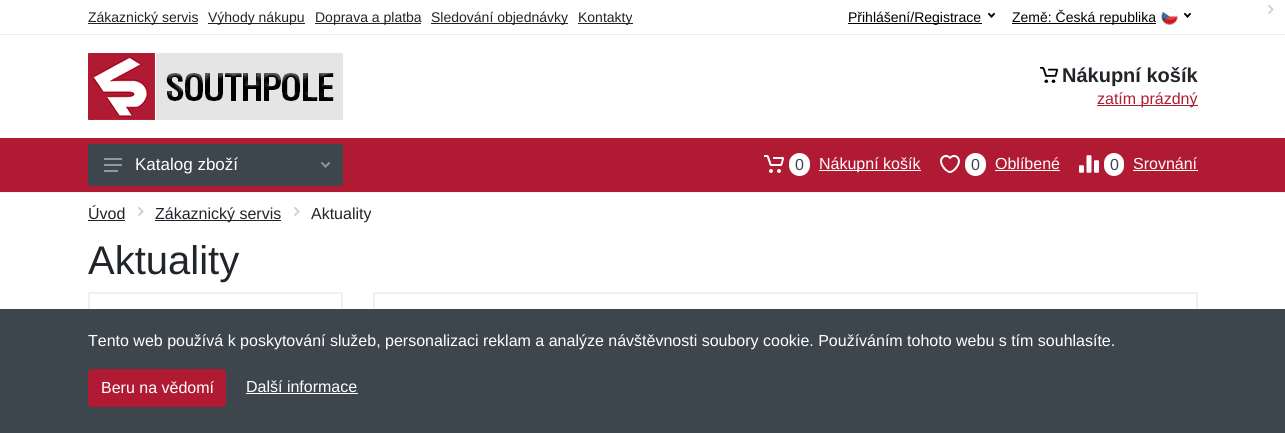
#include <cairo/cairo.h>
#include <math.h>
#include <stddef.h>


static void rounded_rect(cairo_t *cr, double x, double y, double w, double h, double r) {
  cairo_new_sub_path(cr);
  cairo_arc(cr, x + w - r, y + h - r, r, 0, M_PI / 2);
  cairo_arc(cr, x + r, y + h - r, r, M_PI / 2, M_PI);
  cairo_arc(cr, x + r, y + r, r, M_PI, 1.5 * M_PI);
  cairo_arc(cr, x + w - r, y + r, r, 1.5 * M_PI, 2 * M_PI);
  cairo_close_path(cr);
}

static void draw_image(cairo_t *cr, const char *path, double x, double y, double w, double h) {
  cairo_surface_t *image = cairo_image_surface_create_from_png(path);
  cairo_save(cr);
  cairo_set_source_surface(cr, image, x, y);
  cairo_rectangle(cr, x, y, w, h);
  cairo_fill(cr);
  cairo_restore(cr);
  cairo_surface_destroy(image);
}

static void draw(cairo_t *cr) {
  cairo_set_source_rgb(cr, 1, 1, 1);
  cairo_paint(cr);
  draw_image(cr, "images/10.png", 1268, 5, 6, 9);
  cairo_rectangle(cr, -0.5, -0.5, 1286, 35);
  cairo_set_source_rgb(cr, 235 / 255.0, 235 / 255.0, 235 / 255.0);
  cairo_set_line_width(cr, 1);
  cairo_stroke(cr);
  cairo_set_source_rgb(cr, 33 / 255.0, 37 / 255.0, 41 / 255.0);
  cairo_rectangle(cr, 88, 23, 110, 1);
  cairo_fill(cr);
  cairo_rectangle(cr, 208, 23, 97, 1);
  cairo_fill(cr);
  cairo_rectangle(cr, 315, 23, 106, 1);
  cairo_fill(cr);
  cairo_rectangle(cr, 431, 23, 137, 1);
  cairo_fill(cr);
  cairo_rectangle(cr, 578, 23, 55, 1);
  cairo_fill(cr);
  cairo_set_source_rgb(cr, 0, 0, 0);
  cairo_rectangle(cr, 848, 23, 134, 1);
  cairo_fill(cr);
  draw_image(cr, "images/1.png", 988, 13, 7, 5);
  cairo_rectangle(cr, 1012, 23, 144, 1);
  cairo_fill(cr);
  draw_image(cr, "images/2.png", 1161, 8, 17, 17);
  draw_image(cr, "images/1.png", 1184, 13, 7, 5);
  draw_image(cr, "images/3.png", 88, 53, 255, 67);
  draw_image(cr, "images/4.png", 1040, 67, 18, 16);
  cairo_set_source_rgb(cr, 176 / 255.0, 27 / 255.0, 51 / 255.0);
  cairo_rectangle(cr, 1097, 105, 101, 1);
  cairo_fill(cr);
  cairo_set_source_rgb(cr, 245 / 255.0, 245 / 255.0, 245 / 255.0);
  cairo_rectangle(cr, 0, 192, 1285, 1);
  cairo_fill(cr);
  cairo_set_source_rgb(cr, 176 / 255.0, 27 / 255.0, 51 / 255.0);
  cairo_rectangle(cr, 0, 138, 1285, 53);
  cairo_fill(cr);
  cairo_set_source_rgb(cr, 169 / 255.0, 26 / 255.0, 49 / 255.0);
  cairo_rectangle(cr, 0, 191, 1285, 1);
  cairo_fill(cr);
  cairo_set_source_rgb(cr, 61 / 255.0, 70 / 255.0, 77 / 255.0);
  rounded_rect(cr, 88, 144, 255, 42, 2);
  cairo_fill(cr);
  draw_image(cr, "images/5.png", 104, 158, 18, 14);
  draw_image(cr, "images/6.png", 321, 162, 9, 6);
  draw_image(cr, "images/7.png", 764, 155, 20, 18);
  cairo_set_source_rgb(cr, 1, 1, 1);
  rounded_rect(cr, 789, 153, 21, 23, 10.5);
  cairo_fill(cr);
  cairo_rectangle(cr, 819, 170, 102, 1);
  cairo_fill(cr);
  draw_image(cr, "images/8.png", 940, 155, 20, 18);
  rounded_rect(cr, 965, 153, 21, 23, 10.5);
  cairo_fill(cr);
  cairo_rectangle(cr, 995, 170, 65, 1);
  cairo_fill(cr);
  draw_image(cr, "images/9.png", 1079, 155, 20, 18);
  rounded_rect(cr, 1104, 153, 20, 23, 10);
  cairo_fill(cr);
  cairo_rectangle(cr, 1133, 170, 65, 1);
  cairo_fill(cr);
  cairo_set_source_rgb(cr, 33 / 255.0, 37 / 255.0, 41 / 255.0);
  cairo_rectangle(cr, 88, 220, 37, 1);
  cairo_fill(cr);
  draw_image(cr, "images/11.png", 138, 207, 6, 9);
  cairo_rectangle(cr, 155, 220, 126, 1);
  cairo_fill(cr);
  draw_image(cr, "images/11.png", 294, 207, 6, 9);
  rounded_rect(cr, 89, 293, 253, 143, 1);
  cairo_set_source_rgb(cr, 240 / 255.0, 240 / 255.0, 240 / 255.0);
  cairo_set_line_width(cr, 2);
  cairo_stroke(cr);
  rounded_rect(cr, 374, 293, 823, 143, 1);
  cairo_stroke(cr);
  cairo_set_source_rgb(cr, 61 / 255.0, 70 / 255.0, 77 / 255.0);
  cairo_rectangle(cr, 0, 309, 1285, 124);
  cairo_fill(cr);
  cairo_set_source_rgb(cr, 176 / 255.0, 27 / 255.0, 51 / 255.0);
  rounded_rect(cr, 88.5, 369.5, 137, 37, 3.5);
  cairo_fill_preserve(cr);
  cairo_set_line_width(cr, 1);
  cairo_stroke(cr);
  cairo_set_source_rgb(cr, 1, 1, 1);
  cairo_rectangle(cr, 246, 393, 112, 1);
  cairo_fill(cr);
  cairo_select_font_face(cr, "Liberation Sans", CAIRO_FONT_SLANT_NORMAL, CAIRO_FONT_WEIGHT_NORMAL);
  cairo_set_font_size(cr, 14);
  cairo_set_source_rgb(cr, 33 / 255.0, 37 / 255.0, 41 / 255.0);
  cairo_move_to(cr, 88, 22);
  cairo_show_text(cr, "Zákaznický servis");
  cairo_move_to(cr, 208, 22);
  cairo_show_text(cr, "Výhody nákupu");
  cairo_move_to(cr, 315, 22);
  cairo_show_text(cr, "Doprava a platba");
  cairo_move_to(cr, 431, 22);
  cairo_show_text(cr, "Sledování objednávky");
  cairo_move_to(cr, 578, 22);
  cairo_show_text(cr, "Kontakty");
  cairo_set_source_rgb(cr, 0, 0, 0);
  cairo_move_to(cr, 848, 22);
  cairo_show_text(cr, "Přihlášení/Registrace");
  cairo_move_to(cr, 1012, 22);
  cairo_show_text(cr, "Země: Česká republika");
  cairo_select_font_face(cr, "Liberation Sans", CAIRO_FONT_SLANT_NORMAL, CAIRO_FONT_WEIGHT_BOLD);
  cairo_set_font_size(cr, 20);
  cairo_set_source_rgb(cr, 33 / 255.0, 37 / 255.0, 41 / 255.0);
  cairo_move_to(cr, 1062, 82);
  cairo_show_text(cr, "Nákupní košík");
  cairo_select_font_face(cr, "Liberation Sans", CAIRO_FONT_SLANT_NORMAL, CAIRO_FONT_WEIGHT_NORMAL);
  cairo_set_font_size(cr, 16);
  cairo_set_source_rgb(cr, 176 / 255.0, 27 / 255.0, 51 / 255.0);
  cairo_move_to(cr, 1097, 104);
  cairo_show_text(cr, "zatím prázdný");
  cairo_set_font_size(cr, 17);
  cairo_set_source_rgb(cr, 1, 1, 1);
  cairo_move_to(cr, 135, 170);
  cairo_show_text(cr, "Katalog zboží");
  cairo_set_font_size(cr, 16);
  cairo_set_source_rgb(cr, 61 / 255.0, 70 / 255.0, 77 / 255.0);
  cairo_move_to(cr, 795, 170);
  cairo_show_text(cr, "0");
  cairo_set_source_rgb(cr, 1, 1, 1);
  cairo_move_to(cr, 819, 169);
  cairo_show_text(cr, "Nákupní košík");
  cairo_set_source_rgb(cr, 61 / 255.0, 70 / 255.0, 77 / 255.0);
  cairo_move_to(cr, 971, 170);
  cairo_show_text(cr, "0");
  cairo_set_source_rgb(cr, 1, 1, 1);
  cairo_move_to(cr, 995, 169);
  cairo_show_text(cr, "Oblíbené");
  cairo_set_source_rgb(cr, 61 / 255.0, 70 / 255.0, 77 / 255.0);
  cairo_move_to(cr, 1110, 170);
  cairo_show_text(cr, "0");
  cairo_set_source_rgb(cr, 1, 1, 1);
  cairo_move_to(cr, 1133, 169);
  cairo_show_text(cr, "Srovnání");
  cairo_set_source_rgb(cr, 33 / 255.0, 37 / 255.0, 41 / 255.0);
  cairo_move_to(cr, 88, 219);
  cairo_show_text(cr, "Úvod");
  cairo_move_to(cr, 155, 219);
  cairo_show_text(cr, "Zákaznický servis");
  cairo_move_to(cr, 311, 219);
  cairo_show_text(cr, "Aktuality");
  cairo_set_font_size(cr, 40);
  cairo_move_to(cr, 88, 274);
  cairo_show_text(cr, "Aktuality");
  cairo_set_font_size(cr, 16);
  cairo_set_source_rgb(cr, 1, 1, 1);
  cairo_move_to(cr, 88, 346);
  cairo_show_text(cr, "Tento web používá k poskytování služeb, personalizaci reklam a analýze návštěvnosti soubory cookie. Používáním tohoto webu s tím souhlasíte.");
  cairo_move_to(cr, 101, 393);
  cairo_show_text(cr, "Beru na vědomí");
  cairo_move_to(cr, 246, 392);
  cairo_show_text(cr, "Další informace");
}

int main(void) {
  cairo_surface_t *surface = cairo_image_surface_create(CAIRO_FORMAT_RGB24, 1285, 433);
  cairo_t *cr = cairo_create(surface);
  cairo_font_options_t *options = cairo_font_options_create();
  cairo_font_options_set_hint_metrics(options, CAIRO_HINT_METRICS_OFF);
  cairo_font_options_set_hint_style(options, CAIRO_HINT_STYLE_NONE);
  cairo_set_font_options(cr, options);
  cairo_set_miter_limit(cr, 4);
  draw(cr);
  cairo_surface_write_to_png(surface, "out.png");
  cairo_font_options_destroy(options);
  cairo_destroy(cr);
  cairo_surface_destroy(surface);
  return 0;
}
